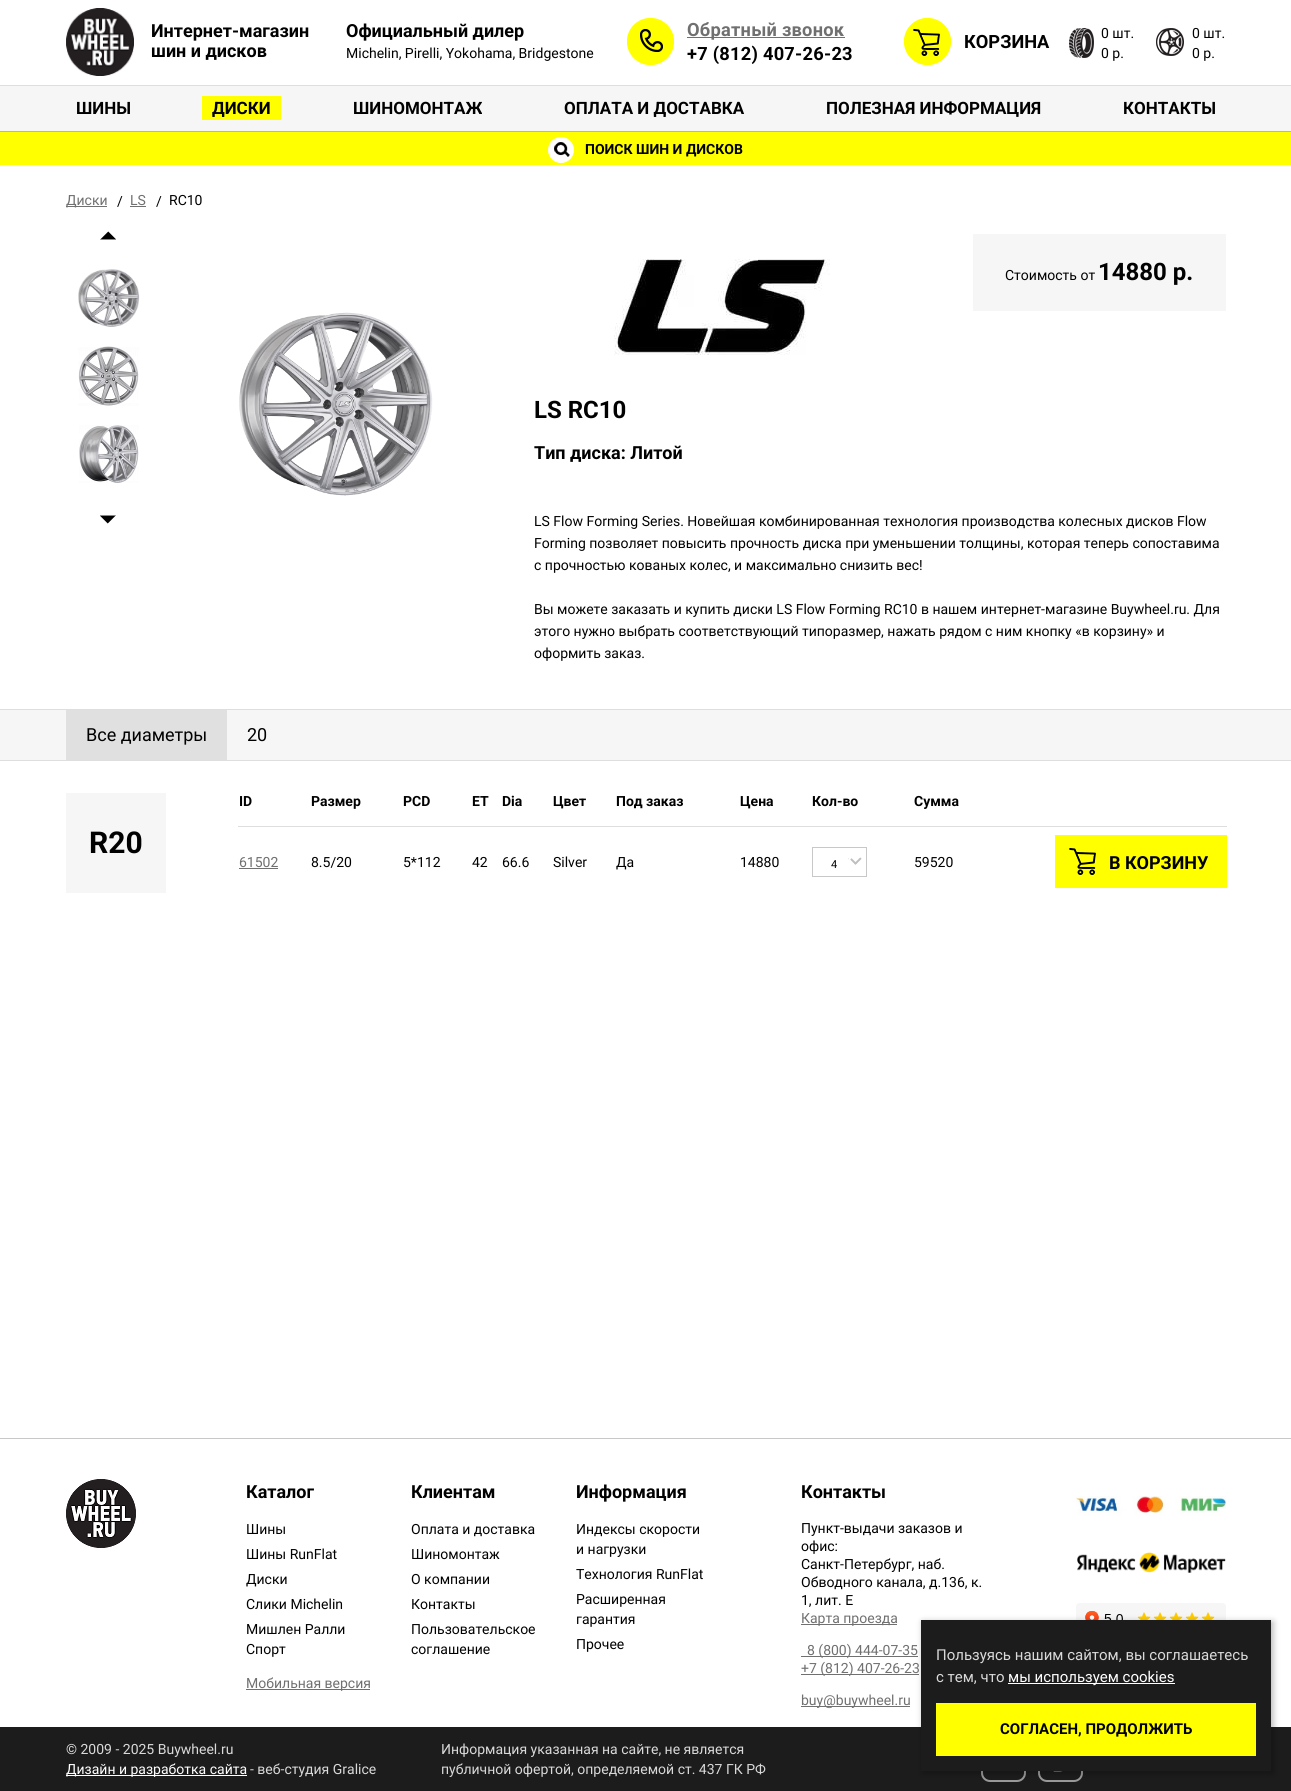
#include <cairo/cairo.h>
#include <math.h>
#include <stddef.h>


static void draw_spaced(cairo_t *cr, double x, double y, const char *s, double letter, double word) {
  cairo_move_to(cr, x, y);
  while (*s) {
    char ch[5] = {0};
    int n = 0;
    do ch[n++] = *s++; while ((*s & 0xC0) == 0x80);
    cairo_show_text(cr, ch);
    cairo_rel_move_to(cr, letter + word * (*ch == ' '), 0);
  }
}

static void rounded_rect(cairo_t *cr, double x, double y, double w, double h, double r) {
  cairo_new_sub_path(cr);
  cairo_arc(cr, x + w - r, y + h - r, r, 0, M_PI / 2);
  cairo_arc(cr, x + r, y + h - r, r, M_PI / 2, M_PI);
  cairo_arc(cr, x + r, y + r, r, M_PI, 1.5 * M_PI);
  cairo_arc(cr, x + w - r, y + r, r, 1.5 * M_PI, 2 * M_PI);
  cairo_close_path(cr);
}

static void draw_shadow(cairo_t *cr, double x, double y, double w, double h, double r, double blur, double alpha) {
  cairo_push_group_with_content(cr, CAIRO_CONTENT_ALPHA);
  cairo_set_operator(cr, CAIRO_OPERATOR_SOURCE);
  for (int i = 15; i >= -15 && fmin(w, h) + blur * i / 3 > 0; i -= 2) {
    double e = blur * i / 6;
    cairo_set_source_rgba(cr, 0, 0, 0, alpha * erfc((i - 1) / 8.5) / 2);
    rounded_rect(cr, x - e, y - e, w + 2 * e, h + 2 * e, fmax(0, fmin(r + e + blur * .6, fmin(w, h) / 2 + e)));
    cairo_fill(cr);
  }
  cairo_pattern_t *soft = cairo_pop_group(cr);
  cairo_mask(cr, soft);
  cairo_pattern_destroy(soft);
}

static void draw_image(cairo_t *cr, const char *path, double x, double y, double w, double h) {
  cairo_surface_t *image = cairo_image_surface_create_from_png(path);
  cairo_save(cr);
  cairo_set_source_surface(cr, image, x, y);
  cairo_rectangle(cr, x, y, w, h);
  cairo_fill(cr);
  cairo_restore(cr);
  cairo_surface_destroy(image);
}

static void draw(cairo_t *cr) {
  cairo_set_source_rgb(cr, 1, 1, 1);
  cairo_paint(cr);
  draw_image(cr, "images/1.png", 66, 8, 68, 68);
  draw_image(cr, "images/2.png", 627, 18, 47, 47);
  cairo_set_source_rgb(cr, 112 / 255.0, 112 / 255.0, 112 / 255.0);
  cairo_rectangle(cr, 687, 37, 158, 1);
  cairo_fill(cr);
  draw_image(cr, "images/3.png", 904, 18, 47, 47);
  draw_image(cr, "images/4.png", 1069, 28, 25, 30);
  draw_image(cr, "images/5.png", 1156, 28, 28, 28);
  cairo_set_source_rgb(cr, 246 / 255.0, 246 / 255.0, 246 / 255.0);
  cairo_rectangle(cr, 0, 86, 1291, 45);
  cairo_fill(cr);
  cairo_set_source_rgb(cr, 222 / 255.0, 222 / 255.0, 222 / 255.0);
  cairo_rectangle(cr, 0, 85, 1291, 1);
  cairo_fill(cr);
  cairo_set_source_rgb(cr, 1, 1, 0);
  cairo_rectangle(cr, 202, 96, 79, 24);
  cairo_fill(cr);
  cairo_rectangle(cr, 0, 132, 1291, 33);
  cairo_fill(cr);
  cairo_set_source_rgb(cr, 204 / 255.0, 204 / 255.0, 0);
  cairo_rectangle(cr, 0, 131, 1291, 1);
  cairo_fill(cr);
  cairo_set_source_rgb(cr, 1, 1, 1);
  cairo_arc(cr, 561, 150, 12.5, 0, 2 * M_PI);
  cairo_fill_preserve(cr);
  cairo_set_line_width(cr, 1);
  cairo_stroke(cr);
  draw_image(cr, "images/6.png", 554, 142, 16, 15);
  cairo_set_source_rgb(cr, 112 / 255.0, 112 / 255.0, 112 / 255.0);
  cairo_rectangle(cr, 66, 206, 41, 1);
  cairo_fill(cr);
  cairo_rectangle(cr, 130, 206, 16, 1);
  cairo_fill(cr);
  draw_image(cr, "images/7.png", 100, 231, 16, 9);
  draw_image(cr, "images/8.png", 100, 515, 16, 9);
  draw_image(cr, "images/9.png", 78, 269, 62, 58);
  draw_image(cr, "images/10.png", 78, 346, 61, 60);
  draw_image(cr, "images/11.png", 79, 425, 60, 58);
  draw_image(cr, "images/12.png", 239, 312, 194, 184);
  draw_image(cr, "images/13.png", 614, 259, 216, 96);
  cairo_set_source_rgb(cr, 246 / 255.0, 246 / 255.0, 246 / 255.0);
  cairo_rectangle(cr, 973, 234, 253, 77);
  cairo_fill(cr);
  cairo_rectangle(cr, 0, 710, 1291, 50);
  cairo_fill(cr);
  cairo_set_source_rgb(cr, 222 / 255.0, 222 / 255.0, 222 / 255.0);
  cairo_rectangle(cr, 0, 709, 1291, 1);
  cairo_fill(cr);
  cairo_rectangle(cr, 0, 760, 1291, 1);
  cairo_fill(cr);
  cairo_set_source_rgb(cr, 224 / 255.0, 224 / 255.0, 224 / 255.0);
  cairo_rectangle(cr, 66, 710, 161, 50);
  cairo_fill(cr);
  cairo_set_source_rgb(cr, 246 / 255.0, 246 / 255.0, 246 / 255.0);
  cairo_rectangle(cr, 66, 793, 100, 100);
  cairo_fill(cr);
  cairo_set_source_rgb(cr, 222 / 255.0, 222 / 255.0, 222 / 255.0);
  cairo_rectangle(cr, 238, 826, 989, 1);
  cairo_fill(cr);
  cairo_set_source_rgb(cr, 112 / 255.0, 112 / 255.0, 112 / 255.0);
  cairo_rectangle(cr, 239, 868, 39, 1);
  cairo_fill(cr);
  cairo_rectangle(cr, 812.5, 847.5, 54, 29);
  cairo_set_source_rgb(cr, 200 / 255.0, 200 / 255.0, 200 / 255.0);
  cairo_stroke(cr);
  draw_image(cr, "images/14.png", 848, 857, 14, 8);
  cairo_set_source_rgb(cr, 1, 1, 0);
  cairo_rectangle(cr, 1055, 835, 172, 53);
  cairo_fill(cr);
  draw_image(cr, "images/15.png", 1069, 848, 27, 27);
  cairo_set_source_rgb(cr, 200 / 255.0, 200 / 255.0, 200 / 255.0);
  cairo_rectangle(cr, 0, 1438, 1291, 1);
  cairo_fill(cr);
  draw_image(cr, "images/16.png", 66, 1479, 70, 69);
  cairo_set_source_rgb(cr, 112 / 255.0, 112 / 255.0, 112 / 255.0);
  cairo_rectangle(cr, 246, 1689, 124, 1);
  cairo_fill(cr);
  cairo_rectangle(cr, 801, 1624, 96, 1);
  cairo_fill(cr);
  cairo_rectangle(cr, 801, 1656, 117, 1);
  cairo_fill(cr);
  cairo_rectangle(cr, 801, 1674, 118, 1);
  cairo_fill(cr);
  cairo_rectangle(cr, 801, 1706, 109, 1);
  cairo_fill(cr);
  draw_image(cr, "images/17.png", 1076, 1496, 150, 20);
  draw_image(cr, "images/18.png", 1077, 1552, 149, 21);
  draw_image(cr, "images/19.png", 1076, 1603, 150, 17);
  cairo_set_source_rgb(cr, 28 / 255.0, 28 / 255.0, 28 / 255.0);
  cairo_rectangle(cr, 0, 1727, 1291, 64);
  cairo_fill(cr);
  cairo_set_source_rgb(cr, 1, 1, 1);
  cairo_rectangle(cr, 66, 1775, 181, 1);
  cairo_fill(cr);
  rounded_rect(cr, 982, 1738, 43, 43, 8);
  cairo_set_source_rgb(cr, 153 / 255.0, 153 / 255.0, 153 / 255.0);
  cairo_set_line_width(cr, 2);
  cairo_stroke(cr);
  rounded_rect(cr, 1039, 1738, 43, 43, 8);
  cairo_stroke(cr);
  draw_image(cr, "images/20.png", 1053, 1771, 10, 1);
  cairo_set_source_rgb(cr, 0, 0, 0);
  draw_shadow(cr, 923, 1622, 350, 151, 0, 3.5, 0.3);
  cairo_set_source_rgb(cr, 28 / 255.0, 28 / 255.0, 28 / 255.0);
  cairo_rectangle(cr, 921, 1620, 350, 151);
  cairo_fill(cr);
  cairo_set_source_rgb(cr, 1, 1, 1);
  cairo_rectangle(cr, 1008, 1683, 167, 1);
  cairo_fill(cr);
  cairo_set_source_rgb(cr, 1, 1, 0);
  cairo_rectangle(cr, 936, 1703, 320, 53);
  cairo_fill(cr);
  cairo_select_font_face(cr, "Roboto", CAIRO_FONT_SLANT_NORMAL, CAIRO_FONT_WEIGHT_BOLD);
  cairo_set_font_size(cr, 18);
  cairo_set_source_rgb(cr, 1 / 255.0, 1 / 255.0, 1 / 255.0);
  cairo_move_to(cr, 151, 37);
  cairo_show_text(cr, "Интернет-магазин");
  cairo_move_to(cr, 151, 57);
  cairo_show_text(cr, "шин и дисков");
  cairo_move_to(cr, 346, 37);
  cairo_show_text(cr, "Официальный дилер");
  cairo_select_font_face(cr, "Roboto", CAIRO_FONT_SLANT_NORMAL, CAIRO_FONT_WEIGHT_NORMAL);
  cairo_set_font_size(cr, 14);
  cairo_move_to(cr, 346, 58);
  cairo_show_text(cr, "Michelin, Pirelli, Yokohama, Bridgestone");
  cairo_select_font_face(cr, "Roboto", CAIRO_FONT_SLANT_NORMAL, CAIRO_FONT_WEIGHT_BOLD);
  cairo_set_font_size(cr, 18.25);
  cairo_set_source_rgb(cr, 112 / 255.0, 112 / 255.0, 112 / 255.0);
  draw_spaced(cr, 687, 36, "Обратный звонок", 0.25, 0);
  cairo_set_source_rgb(cr, 1 / 255.0, 1 / 255.0, 1 / 255.0);
  draw_spaced(cr, 687, 60, "+7 (812) 407-26-23", 0.25, 0);
  cairo_move_to(cr, 964, 48);
  cairo_show_text(cr, "КОРЗИНА");
  cairo_select_font_face(cr, "Roboto", CAIRO_FONT_SLANT_NORMAL, CAIRO_FONT_WEIGHT_NORMAL);
  cairo_set_font_size(cr, 14);
  cairo_move_to(cr, 1101, 38);
  cairo_show_text(cr, "0 шт.");
  cairo_move_to(cr, 1101, 58);
  cairo_show_text(cr, "0 р.");
  cairo_move_to(cr, 1192, 38);
  cairo_show_text(cr, "0 шт.");
  cairo_move_to(cr, 1192, 58);
  cairo_show_text(cr, "0 р.");
  cairo_select_font_face(cr, "Roboto", CAIRO_FONT_SLANT_NORMAL, CAIRO_FONT_WEIGHT_BOLD);
  cairo_set_font_size(cr, 17);
  cairo_move_to(cr, 76, 114);
  cairo_show_text(cr, "ШИНЫ");
  cairo_move_to(cr, 212, 114);
  cairo_show_text(cr, "ДИСКИ");
  cairo_move_to(cr, 353, 114);
  cairo_show_text(cr, "ШИНОМОНТАЖ");
  cairo_move_to(cr, 564, 114);
  cairo_show_text(cr, "ОПЛАТА И ДОСТАВКА");
  cairo_move_to(cr, 826, 114);
  cairo_show_text(cr, "ПОЛЕЗНАЯ ИНФОРМАЦИЯ");
  cairo_move_to(cr, 1123, 114);
  cairo_show_text(cr, "КОНТАКТЫ");
  cairo_set_font_size(cr, 14);
  cairo_move_to(cr, 585, 154);
  cairo_show_text(cr, "ПОИСК ШИН И ДИСКОВ");
  cairo_select_font_face(cr, "Roboto", CAIRO_FONT_SLANT_NORMAL, CAIRO_FONT_WEIGHT_NORMAL);
  cairo_set_source_rgb(cr, 112 / 255.0, 112 / 255.0, 112 / 255.0);
  cairo_move_to(cr, 66, 205);
  cairo_show_text(cr, "Диски");
  cairo_set_source_rgb(cr, 1 / 255.0, 1 / 255.0, 1 / 255.0);
  cairo_move_to(cr, 117, 206);
  cairo_show_text(cr, "/");
  cairo_set_source_rgb(cr, 112 / 255.0, 112 / 255.0, 112 / 255.0);
  cairo_move_to(cr, 130, 205);
  cairo_show_text(cr, "LS");
  cairo_set_source_rgb(cr, 1 / 255.0, 1 / 255.0, 1 / 255.0);
  cairo_move_to(cr, 156, 206);
  cairo_show_text(cr, "/");
  cairo_move_to(cr, 169, 205);
  cairo_show_text(cr, "RC10");
  cairo_move_to(cr, 1005, 280);
  cairo_show_text(cr, "Стоимость от");
  cairo_select_font_face(cr, "Roboto", CAIRO_FONT_SLANT_NORMAL, CAIRO_FONT_WEIGHT_BOLD);
  cairo_set_font_size(cr, 24);
  cairo_move_to(cr, 1098, 280);
  cairo_show_text(cr, "14880 р.");
  cairo_move_to(cr, 534, 418);
  cairo_show_text(cr, "LS RC10");
  cairo_set_font_size(cr, 18);
  cairo_move_to(cr, 534, 459);
  cairo_show_text(cr, "Тип диска: Литой");
  cairo_select_font_face(cr, "Roboto", CAIRO_FONT_SLANT_NORMAL, CAIRO_FONT_WEIGHT_NORMAL);
  cairo_set_font_size(cr, 14);
  cairo_move_to(cr, 534, 526);
  cairo_show_text(cr, "LS Flow Forming Series. Новейшая комбинированная технология производства колесных дисков Flow");
  cairo_move_to(cr, 534, 548);
  cairo_show_text(cr, "Forming позволяет повысить прочность диска при уменьшении толщины, которая теперь сопоставима");
  cairo_move_to(cr, 534, 570);
  cairo_show_text(cr, "с прочностью кованых колес, и максимально снизить вес!");
  cairo_move_to(cr, 534, 614);
  cairo_show_text(cr, "Вы можете заказать и купить диски LS Flow Forming RC10 в нашем интернет-магазине Buywheel.ru. Для");
  cairo_move_to(cr, 534, 636);
  cairo_show_text(cr, "этого нужно выбрать соответствующий типоразмер, нажать рядом с ним кнопку «в корзину» и");
  cairo_move_to(cr, 534, 658);
  cairo_show_text(cr, "оформить заказ.");
  cairo_set_font_size(cr, 18);
  cairo_move_to(cr, 86, 741);
  cairo_show_text(cr, "Все диаметры");
  cairo_move_to(cr, 247, 741);
  cairo_show_text(cr, "20");
  cairo_select_font_face(cr, "Roboto", CAIRO_FONT_SLANT_NORMAL, CAIRO_FONT_WEIGHT_BOLD);
  cairo_set_font_size(cr, 30);
  cairo_move_to(cr, 89, 853);
  cairo_show_text(cr, "R20");
  cairo_set_font_size(cr, 14);
  cairo_move_to(cr, 239, 806);
  cairo_show_text(cr, "ID");
  cairo_move_to(cr, 311, 806);
  cairo_show_text(cr, "Размер");
  cairo_move_to(cr, 403, 806);
  cairo_show_text(cr, "PCD");
  cairo_move_to(cr, 472, 806);
  cairo_show_text(cr, "ET");
  cairo_move_to(cr, 502, 806);
  cairo_show_text(cr, "Dia");
  cairo_move_to(cr, 553, 806);
  cairo_show_text(cr, "Цвет");
  cairo_move_to(cr, 616, 806);
  cairo_show_text(cr, "Под заказ");
  cairo_move_to(cr, 740, 806);
  cairo_show_text(cr, "Цена");
  cairo_move_to(cr, 812, 806);
  cairo_show_text(cr, "Кол-во");
  cairo_move_to(cr, 914, 806);
  cairo_show_text(cr, "Сумма");
  cairo_select_font_face(cr, "Roboto", CAIRO_FONT_SLANT_NORMAL, CAIRO_FONT_WEIGHT_NORMAL);
  cairo_set_source_rgb(cr, 112 / 255.0, 112 / 255.0, 112 / 255.0);
  cairo_move_to(cr, 239, 867);
  cairo_show_text(cr, "61502");
  cairo_set_source_rgb(cr, 1 / 255.0, 1 / 255.0, 1 / 255.0);
  cairo_move_to(cr, 311, 867);
  cairo_show_text(cr, "8.5/20");
  cairo_move_to(cr, 403, 867);
  cairo_show_text(cr, "5*112");
  cairo_move_to(cr, 472, 867);
  cairo_show_text(cr, "42");
  cairo_move_to(cr, 502, 867);
  cairo_show_text(cr, "66.6");
  cairo_move_to(cr, 553, 867);
  cairo_show_text(cr, "Silver");
  cairo_move_to(cr, 616, 867);
  cairo_show_text(cr, "Да");
  cairo_move_to(cr, 740, 867);
  cairo_show_text(cr, "14880");
  cairo_set_font_size(cr, 11);
  cairo_move_to(cr, 831, 868);
  cairo_show_text(cr, "4");
  cairo_set_font_size(cr, 14);
  cairo_move_to(cr, 914, 867);
  cairo_show_text(cr, "59520");
  cairo_select_font_face(cr, "Roboto", CAIRO_FONT_SLANT_NORMAL, CAIRO_FONT_WEIGHT_BOLD);
  cairo_set_font_size(cr, 18);
  cairo_move_to(cr, 1109, 869);
  cairo_show_text(cr, "В КОРЗИНУ");
  cairo_move_to(cr, 246, 1498);
  cairo_show_text(cr, "Каталог");
  cairo_select_font_face(cr, "Roboto", CAIRO_FONT_SLANT_NORMAL, CAIRO_FONT_WEIGHT_NORMAL);
  cairo_set_font_size(cr, 14);
  cairo_move_to(cr, 246, 1534);
  cairo_show_text(cr, "Шины");
  cairo_move_to(cr, 246, 1559);
  cairo_show_text(cr, "Шины RunFlat");
  cairo_move_to(cr, 246, 1584);
  cairo_show_text(cr, "Диски");
  cairo_move_to(cr, 246, 1609);
  cairo_show_text(cr, "Слики Michelin");
  cairo_move_to(cr, 246, 1634);
  cairo_show_text(cr, "Мишлен Ралли");
  cairo_move_to(cr, 246, 1654);
  cairo_show_text(cr, "Спорт");
  cairo_set_source_rgb(cr, 112 / 255.0, 112 / 255.0, 112 / 255.0);
  cairo_move_to(cr, 246, 1688);
  cairo_show_text(cr, "Мобильная версия");
  cairo_select_font_face(cr, "Roboto", CAIRO_FONT_SLANT_NORMAL, CAIRO_FONT_WEIGHT_BOLD);
  cairo_set_font_size(cr, 18);
  cairo_set_source_rgb(cr, 1 / 255.0, 1 / 255.0, 1 / 255.0);
  cairo_move_to(cr, 411, 1498);
  cairo_show_text(cr, "Клиентам");
  cairo_select_font_face(cr, "Roboto", CAIRO_FONT_SLANT_NORMAL, CAIRO_FONT_WEIGHT_NORMAL);
  cairo_set_font_size(cr, 14);
  cairo_move_to(cr, 411, 1534);
  cairo_show_text(cr, "Оплата и доставка");
  cairo_move_to(cr, 411, 1559);
  cairo_show_text(cr, "Шиномонтаж");
  cairo_move_to(cr, 411, 1584);
  cairo_show_text(cr, "О компании");
  cairo_move_to(cr, 411, 1609);
  cairo_show_text(cr, "Контакты");
  cairo_move_to(cr, 411, 1634);
  cairo_show_text(cr, "Пользовательское");
  cairo_move_to(cr, 411, 1654);
  cairo_show_text(cr, "соглашение");
  cairo_select_font_face(cr, "Roboto", CAIRO_FONT_SLANT_NORMAL, CAIRO_FONT_WEIGHT_BOLD);
  cairo_set_font_size(cr, 18);
  cairo_move_to(cr, 576, 1498);
  cairo_show_text(cr, "Информация");
  cairo_select_font_face(cr, "Roboto", CAIRO_FONT_SLANT_NORMAL, CAIRO_FONT_WEIGHT_NORMAL);
  cairo_set_font_size(cr, 14);
  cairo_move_to(cr, 576, 1534);
  cairo_show_text(cr, "Индексы скорости");
  cairo_move_to(cr, 576, 1554);
  cairo_show_text(cr, "и нагрузки");
  cairo_move_to(cr, 576, 1579);
  cairo_show_text(cr, "Технология RunFlat");
  cairo_move_to(cr, 576, 1604);
  cairo_show_text(cr, "Расширенная");
  cairo_move_to(cr, 576, 1624);
  cairo_show_text(cr, "гарантия");
  cairo_move_to(cr, 576, 1649);
  cairo_show_text(cr, "Прочее");
  cairo_select_font_face(cr, "Roboto", CAIRO_FONT_SLANT_NORMAL, CAIRO_FONT_WEIGHT_BOLD);
  cairo_set_font_size(cr, 18);
  cairo_move_to(cr, 801, 1498);
  cairo_show_text(cr, "Контакты");
  cairo_select_font_face(cr, "Roboto", CAIRO_FONT_SLANT_NORMAL, CAIRO_FONT_WEIGHT_NORMAL);
  cairo_set_font_size(cr, 14);
  cairo_move_to(cr, 801, 1533);
  cairo_show_text(cr, "Пункт-выдачи заказов и");
  cairo_move_to(cr, 801, 1551);
  cairo_show_text(cr, "офис:");
  cairo_move_to(cr, 801, 1569);
  cairo_show_text(cr, "Санкт-Петербург, наб.");
  cairo_move_to(cr, 801, 1587);
  cairo_show_text(cr, "Обводного канала, д.136, к.");
  cairo_move_to(cr, 801, 1605);
  cairo_show_text(cr, "1, лит. Е");
  cairo_set_source_rgb(cr, 112 / 255.0, 112 / 255.0, 112 / 255.0);
  cairo_move_to(cr, 801, 1623);
  cairo_show_text(cr, "Карта проезда");
  cairo_move_to(cr, 807, 1655);
  cairo_show_text(cr, "8 (800) 444-07-35");
  cairo_move_to(cr, 801, 1673);
  cairo_show_text(cr, "+7 (812) 407-26-23");
  cairo_move_to(cr, 801, 1705);
  cairo_show_text(cr, "buy@buywheel.ru");
  cairo_set_source_rgb(cr, 217 / 255.0, 217 / 255.0, 217 / 255.0);
  cairo_move_to(cr, 66, 1754);
  cairo_show_text(cr, "© 2009 - 2025 Buywheel.ru");
  cairo_set_source_rgb(cr, 1, 1, 1);
  cairo_move_to(cr, 66, 1774);
  cairo_show_text(cr, "Дизайн и разработка сайта");
  cairo_set_source_rgb(cr, 217 / 255.0, 217 / 255.0, 217 / 255.0);
  cairo_move_to(cr, 250, 1774);
  cairo_show_text(cr, "- веб-студия Gralice");
  cairo_move_to(cr, 441, 1754);
  cairo_show_text(cr, "Информация указанная на сайте, не является");
  cairo_move_to(cr, 441, 1774);
  cairo_show_text(cr, "публичной офертой, определяемой ст. 437 ГК РФ");
  cairo_set_font_size(cr, 15);
  cairo_move_to(cr, 936, 1660);
  cairo_show_text(cr, "Пользуясь нашим сайтом, вы соглашаетесь");
  cairo_move_to(cr, 936, 1682);
  cairo_show_text(cr, "с тем, что");
  cairo_set_source_rgb(cr, 1, 1, 1);
  cairo_move_to(cr, 1008, 1682);
  cairo_show_text(cr, "мы используем cookies");
  cairo_select_font_face(cr, "Roboto", CAIRO_FONT_SLANT_NORMAL, CAIRO_FONT_WEIGHT_BOLD);
  cairo_set_source_rgb(cr, 1 / 255.0, 1 / 255.0, 1 / 255.0);
  cairo_move_to(cr, 1000, 1734);
  cairo_show_text(cr, "СОГЛАСЕН, ПРОДОЛЖИТЬ");
}

int main(void) {
  cairo_surface_t *surface = cairo_image_surface_create(CAIRO_FORMAT_RGB24, 1291, 1791);
  cairo_t *cr = cairo_create(surface);
  cairo_font_options_t *options = cairo_font_options_create();
  cairo_font_options_set_hint_metrics(options, CAIRO_HINT_METRICS_OFF);
  cairo_font_options_set_hint_style(options, CAIRO_HINT_STYLE_NONE);
  cairo_set_font_options(cr, options);
  cairo_set_miter_limit(cr, 4);
  draw(cr);
  cairo_surface_write_to_png(surface, "out.png");
  cairo_font_options_destroy(options);
  cairo_destroy(cr);
  cairo_surface_destroy(surface);
  return 0;
}
